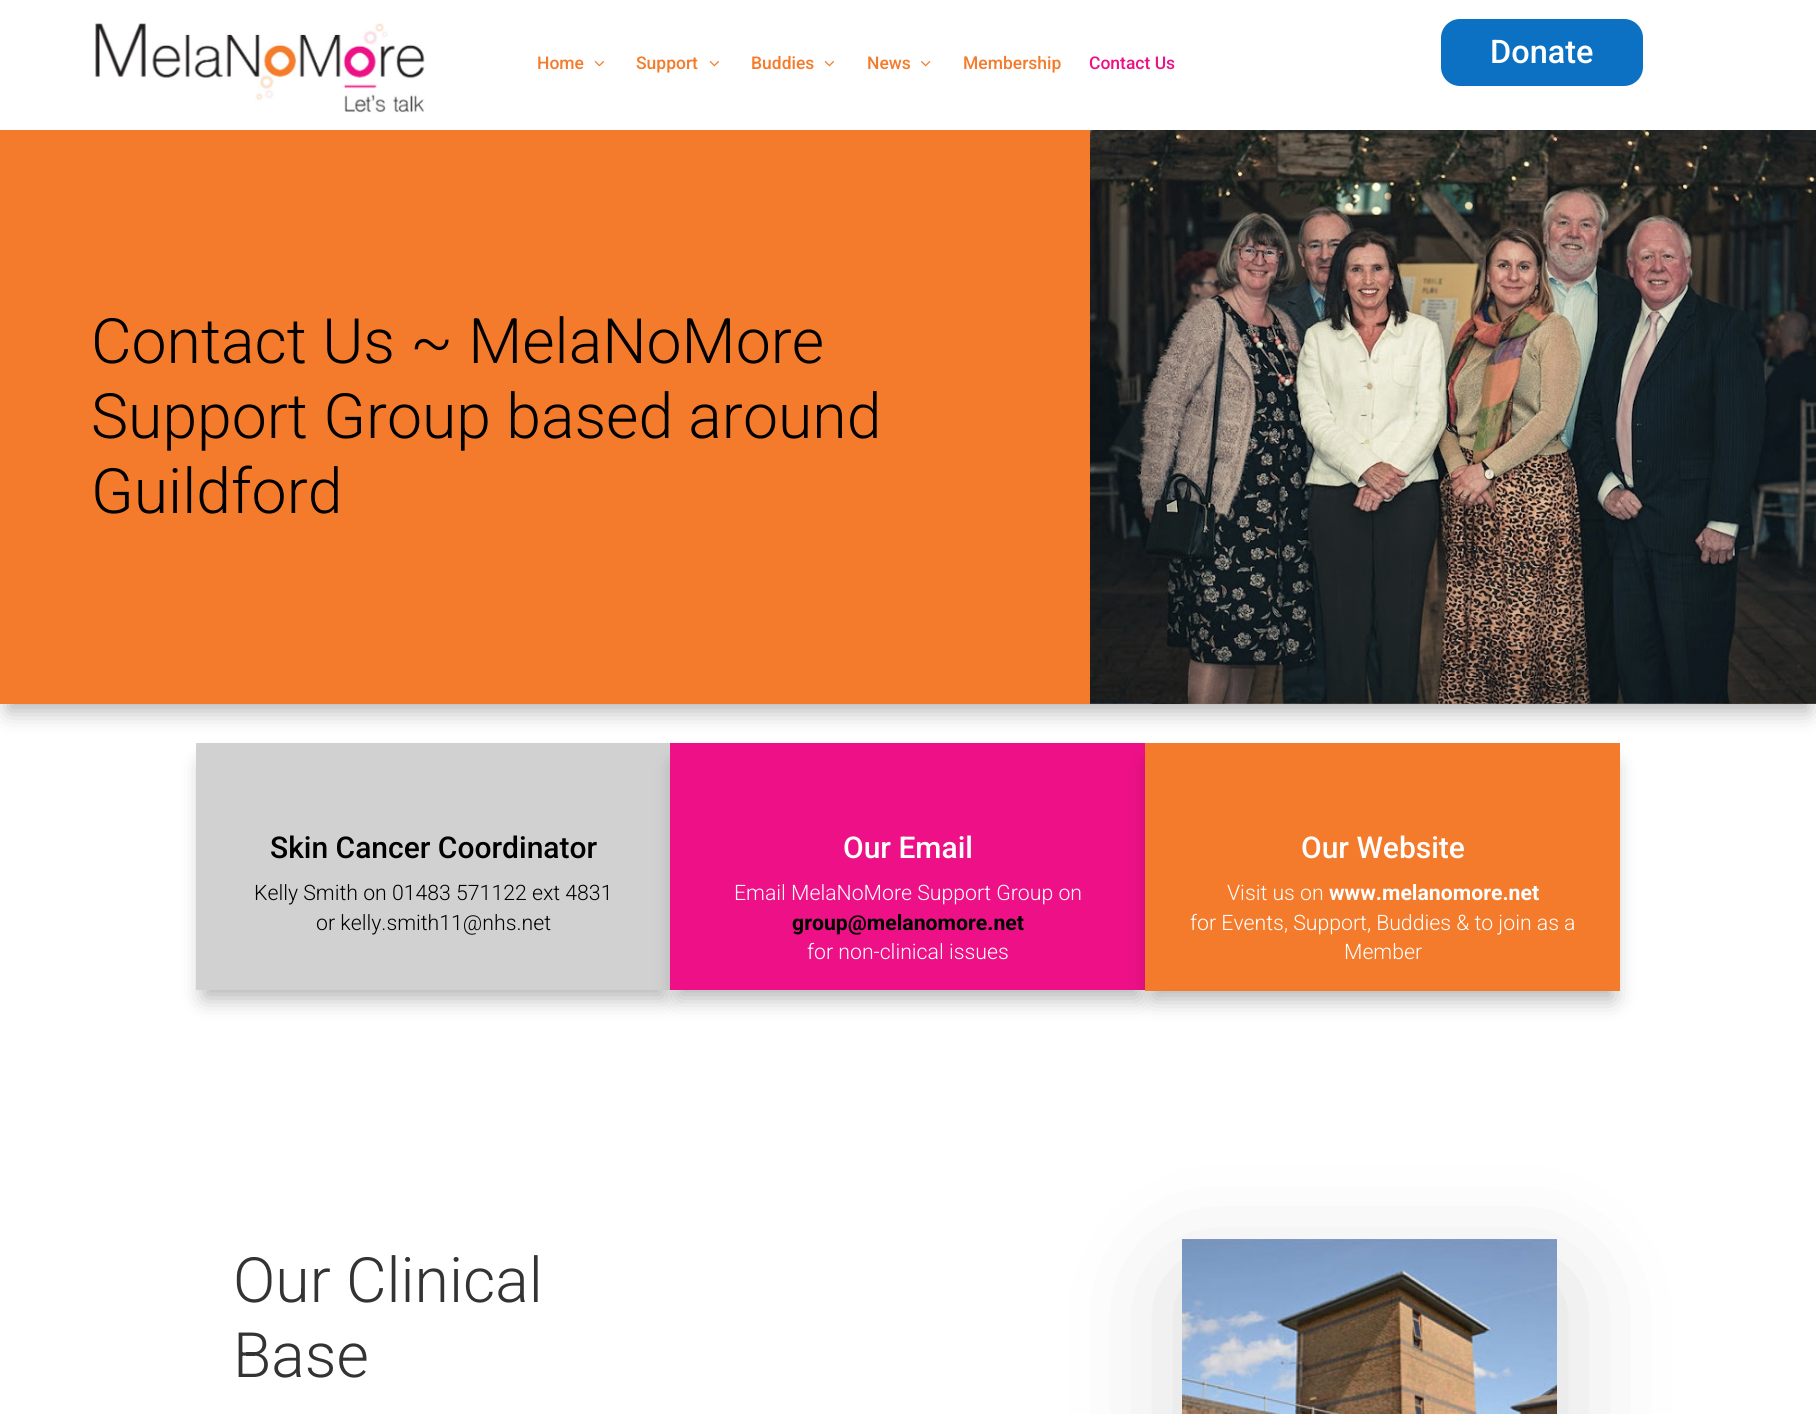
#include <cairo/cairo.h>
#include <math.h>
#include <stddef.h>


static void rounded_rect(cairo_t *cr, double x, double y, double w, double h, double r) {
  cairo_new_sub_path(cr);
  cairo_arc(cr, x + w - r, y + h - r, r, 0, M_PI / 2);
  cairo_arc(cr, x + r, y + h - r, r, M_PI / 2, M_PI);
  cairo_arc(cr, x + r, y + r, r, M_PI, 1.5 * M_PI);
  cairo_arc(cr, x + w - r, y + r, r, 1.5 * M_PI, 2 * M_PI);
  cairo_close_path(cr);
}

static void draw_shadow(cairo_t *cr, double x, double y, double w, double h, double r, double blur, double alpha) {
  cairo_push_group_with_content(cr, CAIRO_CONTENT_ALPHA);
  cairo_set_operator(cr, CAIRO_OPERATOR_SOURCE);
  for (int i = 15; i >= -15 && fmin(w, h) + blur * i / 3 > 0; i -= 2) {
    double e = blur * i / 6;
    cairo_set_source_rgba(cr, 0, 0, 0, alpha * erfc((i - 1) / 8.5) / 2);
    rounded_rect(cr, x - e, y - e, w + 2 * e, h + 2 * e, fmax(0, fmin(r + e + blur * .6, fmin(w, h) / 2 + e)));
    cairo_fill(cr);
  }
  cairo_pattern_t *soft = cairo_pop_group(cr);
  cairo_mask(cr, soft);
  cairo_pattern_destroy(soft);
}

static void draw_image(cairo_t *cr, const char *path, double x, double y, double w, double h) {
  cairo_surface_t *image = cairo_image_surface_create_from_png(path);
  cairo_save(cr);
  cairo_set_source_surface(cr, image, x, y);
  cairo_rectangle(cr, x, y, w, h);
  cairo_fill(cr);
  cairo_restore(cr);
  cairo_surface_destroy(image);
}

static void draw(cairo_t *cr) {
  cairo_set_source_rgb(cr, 1, 1, 1);
  cairo_paint(cr);
  draw_image(cr, "images/1.png", 1090, 703, 726, 1);
  draw_image(cr, "images/2.png", 95, 23, 330, 90);
  draw_image(cr, "images/3.png", 594, 61, 10, 6);
  draw_image(cr, "images/3.png", 709, 61, 10, 6);
  draw_image(cr, "images/3.png", 824, 61, 10, 6);
  draw_image(cr, "images/4.png", 921, 61, 10, 6);
  cairo_set_source_rgb(cr, 12 / 255.0, 113 / 255.0, 195 / 255.0);
  rounded_rect(cr, 1441, 19, 202, 67, 19);
  cairo_fill(cr);
  cairo_set_source_rgb(cr, 0, 0, 0);
  draw_shadow(cr, 204, 765, 460, 233, 0, 11, 0.3);
  cairo_set_source_rgb(cr, 209 / 255.0, 209 / 255.0, 209 / 255.0);
  cairo_rectangle(cr, 196, 743, 474, 247);
  cairo_fill(cr);
  cairo_set_source_rgb(cr, 0, 0, 0);
  draw_shadow(cr, 678, 765, 461, 233, 0, 11, 0.3);
  cairo_set_source_rgb(cr, 237 / 255.0, 16 / 255.0, 135 / 255.0);
  cairo_rectangle(cr, 670, 743, 475, 247);
  cairo_fill(cr);
  cairo_set_source_rgb(cr, 0, 0, 0);
  draw_shadow(cr, 1153, 765, 460, 234, 0, 11, 0.3);
  cairo_set_source_rgb(cr, 244 / 255.0, 123 / 255.0, 43 / 255.0);
  cairo_rectangle(cr, 1145, 743, 475, 248);
  cairo_fill(cr);
  cairo_set_source_rgb(cr, 0, 0, 0);
  draw_shadow(cr, 8, 153, 1801, 558, 0, 11, 0.3);
  draw_image(cr, "images/5.png", 1151, 703, 665, 1);
  cairo_set_source_rgb(cr, 244 / 255.0, 123 / 255.0, 43 / 255.0);
  cairo_rectangle(cr, 0, 130, 1090, 574);
  cairo_fill(cr);
  draw_image(cr, "images/6.png", 1090, 130, 726, 574);
  cairo_set_source_rgb(cr, 0, 0, 0);
  draw_shadow(cr, 1183, 1279, 375, 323, 0, 62.5, 0.15);
  draw_image(cr, "images/7.png", 1182, 1239, 375, 175);
  cairo_select_font_face(cr, "Roboto Medium", CAIRO_FONT_SLANT_NORMAL, CAIRO_FONT_WEIGHT_NORMAL);
  cairo_set_font_size(cr, 17.5);
  cairo_set_source_rgb(cr, 244 / 255.0, 123 / 255.0, 43 / 255.0);
  cairo_move_to(cr, 537, 69);
  cairo_show_text(cr, "Home");
  cairo_move_to(cr, 636, 69);
  cairo_show_text(cr, "Support");
  cairo_move_to(cr, 751, 69);
  cairo_show_text(cr, "Buddies");
  cairo_move_to(cr, 867, 69);
  cairo_show_text(cr, "News");
  cairo_move_to(cr, 963, 69);
  cairo_show_text(cr, "Membership");
  cairo_set_source_rgb(cr, 238 / 255.0, 16 / 255.0, 135 / 255.0);
  cairo_move_to(cr, 1089, 69);
  cairo_show_text(cr, "Contact Us");
  cairo_set_font_size(cr, 32.5);
  cairo_set_source_rgb(cr, 1, 1, 1);
  cairo_move_to(cr, 1490, 63);
  cairo_show_text(cr, "Donate");
  cairo_select_font_face(cr, "Roboto Light", CAIRO_FONT_SLANT_NORMAL, CAIRO_FONT_WEIGHT_NORMAL);
  cairo_set_font_size(cr, 62.5);
  cairo_set_source_rgb(cr, 0, 0, 0);
  cairo_move_to(cr, 91, 363);
  cairo_show_text(cr, "Contact Us ~ MelaNoMore");
  cairo_move_to(cr, 91, 438);
  cairo_show_text(cr, "Support Group based around");
  cairo_move_to(cr, 91, 513);
  cairo_show_text(cr, "Guildford");
  cairo_select_font_face(cr, "Roboto Medium", CAIRO_FONT_SLANT_NORMAL, CAIRO_FONT_WEIGHT_NORMAL);
  cairo_set_font_size(cr, 30);
  cairo_move_to(cr, 270, 858);
  cairo_show_text(cr, "Skin Cancer Coordinator");
  cairo_select_font_face(cr, "Roboto Light", CAIRO_FONT_SLANT_NORMAL, CAIRO_FONT_WEIGHT_NORMAL);
  cairo_set_font_size(cr, 21.25);
  cairo_move_to(cr, 254, 900);
  cairo_show_text(cr, "Kelly Smith on 01483 571122 ext 4831");
  cairo_move_to(cr, 316, 930);
  cairo_show_text(cr, "or kelly.smith11@nhs.net");
  cairo_select_font_face(cr, "Roboto Medium", CAIRO_FONT_SLANT_NORMAL, CAIRO_FONT_WEIGHT_NORMAL);
  cairo_set_font_size(cr, 30);
  cairo_set_source_rgb(cr, 1, 1, 1);
  cairo_move_to(cr, 843, 858);
  cairo_show_text(cr, "Our Email");
  cairo_select_font_face(cr, "Roboto Light", CAIRO_FONT_SLANT_NORMAL, CAIRO_FONT_WEIGHT_NORMAL);
  cairo_set_font_size(cr, 21.25);
  cairo_move_to(cr, 734, 900);
  cairo_show_text(cr, "Email MelaNoMore Support Group on");
  cairo_select_font_face(cr, "Roboto", CAIRO_FONT_SLANT_NORMAL, CAIRO_FONT_WEIGHT_BOLD);
  cairo_set_source_rgb(cr, 0, 0, 0);
  cairo_move_to(cr, 792, 930);
  cairo_show_text(cr, "group@melanomore.net");
  cairo_select_font_face(cr, "Roboto Light", CAIRO_FONT_SLANT_NORMAL, CAIRO_FONT_WEIGHT_NORMAL);
  cairo_set_source_rgb(cr, 1, 1, 1);
  cairo_move_to(cr, 807, 959);
  cairo_show_text(cr, "for non-clinical issues");
  cairo_select_font_face(cr, "Roboto Medium", CAIRO_FONT_SLANT_NORMAL, CAIRO_FONT_WEIGHT_NORMAL);
  cairo_set_font_size(cr, 30);
  cairo_move_to(cr, 1301, 858);
  cairo_show_text(cr, "Our Website");
  cairo_select_font_face(cr, "Roboto Light", CAIRO_FONT_SLANT_NORMAL, CAIRO_FONT_WEIGHT_NORMAL);
  cairo_set_font_size(cr, 21.25);
  cairo_move_to(cr, 1227, 900);
  cairo_show_text(cr, "Visit us on");
  cairo_select_font_face(cr, "Roboto", CAIRO_FONT_SLANT_NORMAL, CAIRO_FONT_WEIGHT_BOLD);
  cairo_move_to(cr, 1329, 900);
  cairo_show_text(cr, "www.melanomore.net");
  cairo_select_font_face(cr, "Roboto Light", CAIRO_FONT_SLANT_NORMAL, CAIRO_FONT_WEIGHT_NORMAL);
  cairo_move_to(cr, 1190, 930);
  cairo_show_text(cr, "for Events, Support, Buddies & to join as a");
  cairo_move_to(cr, 1344, 959);
  cairo_show_text(cr, "Member");
  cairo_set_font_size(cr, 62.5);
  cairo_set_source_rgb(cr, 51 / 255.0, 51 / 255.0, 51 / 255.0);
  cairo_move_to(cr, 233, 1302);
  cairo_show_text(cr, "Our Clinical");
  cairo_move_to(cr, 233, 1377);
  cairo_show_text(cr, "Base");
}

int main(void) {
  cairo_surface_t *surface = cairo_image_surface_create(CAIRO_FORMAT_RGB24, 1816, 1414);
  cairo_t *cr = cairo_create(surface);
  cairo_font_options_t *options = cairo_font_options_create();
  cairo_font_options_set_hint_metrics(options, CAIRO_HINT_METRICS_OFF);
  cairo_font_options_set_hint_style(options, CAIRO_HINT_STYLE_NONE);
  cairo_set_font_options(cr, options);
  cairo_set_miter_limit(cr, 4);
  draw(cr);
  cairo_surface_write_to_png(surface, "out.png");
  cairo_font_options_destroy(options);
  cairo_destroy(cr);
  cairo_surface_destroy(surface);
  return 0;
}
